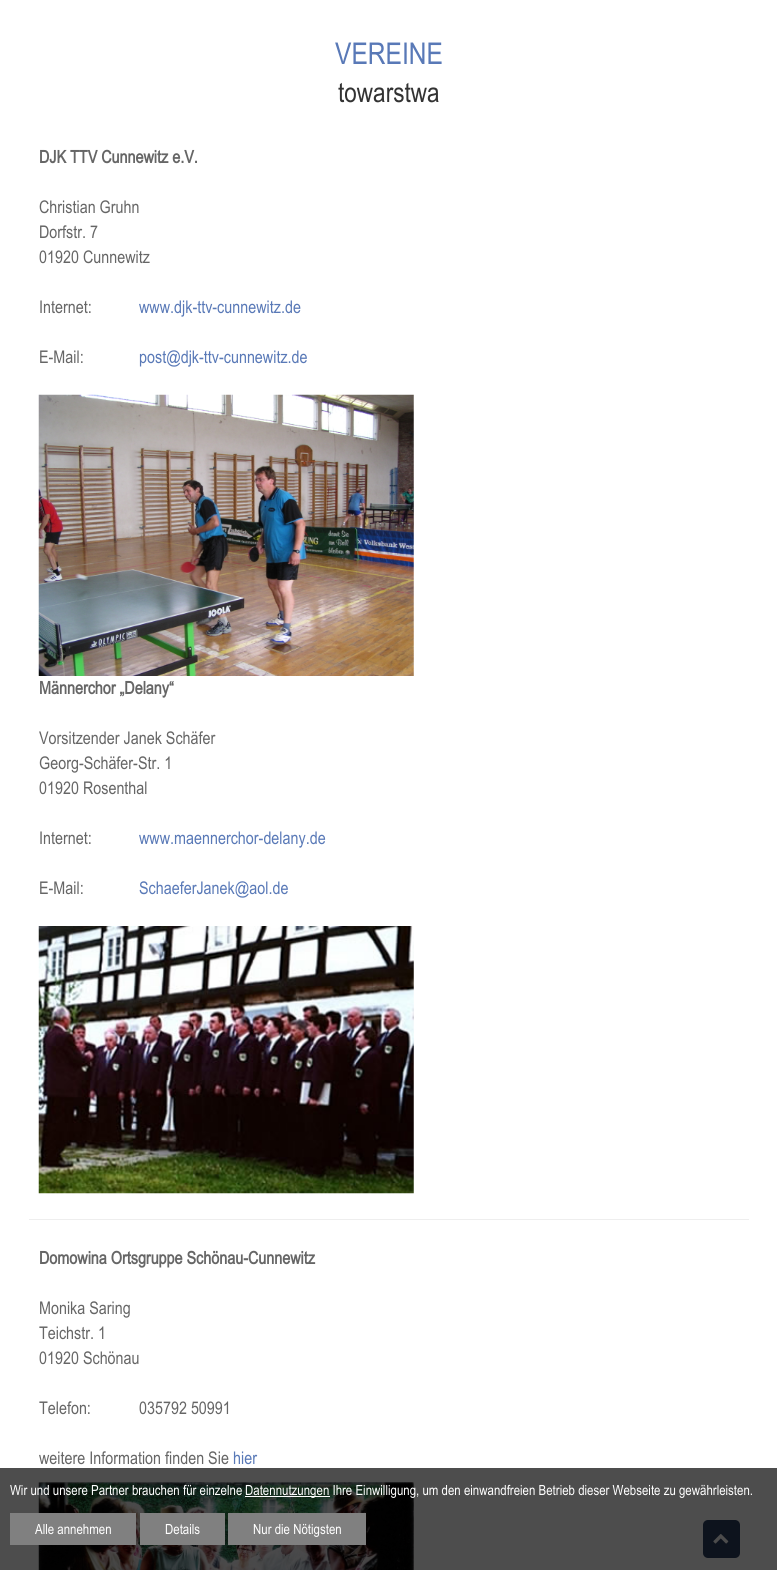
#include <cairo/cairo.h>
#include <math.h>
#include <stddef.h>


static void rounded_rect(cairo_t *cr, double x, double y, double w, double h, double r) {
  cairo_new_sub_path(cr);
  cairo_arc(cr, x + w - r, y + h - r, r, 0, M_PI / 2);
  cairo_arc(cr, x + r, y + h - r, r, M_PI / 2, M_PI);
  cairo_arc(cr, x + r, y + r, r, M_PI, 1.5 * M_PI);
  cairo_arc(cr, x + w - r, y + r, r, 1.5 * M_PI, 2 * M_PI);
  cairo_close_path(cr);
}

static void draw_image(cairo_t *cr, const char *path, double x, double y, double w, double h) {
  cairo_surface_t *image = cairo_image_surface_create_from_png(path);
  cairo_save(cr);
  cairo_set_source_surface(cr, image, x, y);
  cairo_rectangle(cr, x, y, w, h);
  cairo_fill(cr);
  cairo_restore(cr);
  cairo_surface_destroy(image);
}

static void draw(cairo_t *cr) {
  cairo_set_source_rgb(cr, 1, 1, 1);
  cairo_paint(cr);
  cairo_set_source_rgb(cr, 77 / 255.0, 77 / 255.0, 77 / 255.0);
  cairo_rectangle(cr, 0, 1468, 777, 102);
  cairo_fill(cr);
  draw_image(cr, "images/1.png", 38, 394, 376, 282);
  draw_image(cr, "images/2.png", 38, 926, 376, 268);
  cairo_set_source_rgb(cr, 238 / 255.0, 238 / 255.0, 238 / 255.0);
  cairo_rectangle(cr, 29, 1219, 720, 1);
  cairo_fill(cr);
  draw_image(cr, "images/3.png", 38, 1482, 376, 88);
  cairo_set_source_rgb(cr, 13 / 255.0, 19 / 255.0, 29 / 255.0);
  rounded_rect(cr, 703, 1520, 37, 38, 5);
  cairo_fill(cr);
  draw_image(cr, "images/4.png", 713, 1534, 16, 10);
  cairo_set_source_rgb(cr, 1, 1, 1);
  cairo_rectangle(cr, 245, 1496, 85, 1);
  cairo_fill(cr);
  cairo_set_source_rgb(cr, 128 / 255.0, 128 / 255.0, 128 / 255.0);
  cairo_rectangle(cr, 10, 1513, 126, 32);
  cairo_fill(cr);
  cairo_rectangle(cr, 140, 1513, 85, 32);
  cairo_fill(cr);
  cairo_rectangle(cr, 228, 1513, 138, 32);
  cairo_fill(cr);
  cairo_select_font_face(cr, "Arial", CAIRO_FONT_SLANT_NORMAL, CAIRO_FONT_WEIGHT_NORMAL);
  cairo_set_font_size(cr, 30);
  cairo_set_source_rgb(cr, 89 / 255.0, 121 / 255.0, 183 / 255.0);
  cairo_move_to(cr, 335, 64);
  cairo_show_text(cr, "VEREINE");
  cairo_set_font_size(cr, 27.5);
  cairo_set_source_rgb(cr, 51 / 255.0, 51 / 255.0, 51 / 255.0);
  cairo_move_to(cr, 338, 102);
  cairo_show_text(cr, "towarstwa");
  cairo_select_font_face(cr, "Arial", CAIRO_FONT_SLANT_NORMAL, CAIRO_FONT_WEIGHT_BOLD);
  cairo_set_font_size(cr, 17.5);
  cairo_set_source_rgb(cr, 102 / 255.0, 102 / 255.0, 102 / 255.0);
  cairo_move_to(cr, 39, 163);
  cairo_show_text(cr, "DJK TTV Cunnewitz e.V.");
  cairo_select_font_face(cr, "Arial", CAIRO_FONT_SLANT_NORMAL, CAIRO_FONT_WEIGHT_NORMAL);
  cairo_move_to(cr, 39, 213);
  cairo_show_text(cr, "Christian Gruhn");
  cairo_move_to(cr, 39, 238);
  cairo_show_text(cr, "Dorfstr. 7");
  cairo_move_to(cr, 39, 263);
  cairo_show_text(cr, "01920 Cunnewitz");
  cairo_move_to(cr, 39, 313);
  cairo_show_text(cr, "Internet:");
  cairo_set_source_rgb(cr, 89 / 255.0, 121 / 255.0, 183 / 255.0);
  cairo_move_to(cr, 139, 313);
  cairo_show_text(cr, "www.djk-ttv-cunnewitz.de");
  cairo_set_source_rgb(cr, 102 / 255.0, 102 / 255.0, 102 / 255.0);
  cairo_move_to(cr, 39, 363);
  cairo_show_text(cr, "E-Mail:");
  cairo_set_source_rgb(cr, 89 / 255.0, 121 / 255.0, 183 / 255.0);
  cairo_move_to(cr, 139, 363);
  cairo_show_text(cr, "post@djk-ttv-cunnewitz.de");
  cairo_select_font_face(cr, "Arial", CAIRO_FONT_SLANT_NORMAL, CAIRO_FONT_WEIGHT_BOLD);
  cairo_set_source_rgb(cr, 102 / 255.0, 102 / 255.0, 102 / 255.0);
  cairo_move_to(cr, 39, 694);
  cairo_show_text(cr, "Männerchor „Delany“");
  cairo_select_font_face(cr, "Arial", CAIRO_FONT_SLANT_NORMAL, CAIRO_FONT_WEIGHT_NORMAL);
  cairo_move_to(cr, 39, 744);
  cairo_show_text(cr, "Vorsitzender Janek Schäfer");
  cairo_move_to(cr, 39, 769);
  cairo_show_text(cr, "Georg-Schäfer-Str. 1");
  cairo_move_to(cr, 39, 794);
  cairo_show_text(cr, "01920 Rosenthal");
  cairo_move_to(cr, 39, 844);
  cairo_show_text(cr, "Internet:");
  cairo_set_source_rgb(cr, 89 / 255.0, 121 / 255.0, 183 / 255.0);
  cairo_move_to(cr, 139, 844);
  cairo_show_text(cr, "www.maennerchor-delany.de");
  cairo_set_source_rgb(cr, 102 / 255.0, 102 / 255.0, 102 / 255.0);
  cairo_move_to(cr, 39, 894);
  cairo_show_text(cr, "E-Mail:");
  cairo_set_source_rgb(cr, 89 / 255.0, 121 / 255.0, 183 / 255.0);
  cairo_move_to(cr, 139, 894);
  cairo_show_text(cr, "SchaeferJanek@aol.de");
  cairo_select_font_face(cr, "Arial", CAIRO_FONT_SLANT_NORMAL, CAIRO_FONT_WEIGHT_BOLD);
  cairo_set_source_rgb(cr, 102 / 255.0, 102 / 255.0, 102 / 255.0);
  cairo_move_to(cr, 39, 1264);
  cairo_show_text(cr, "Domowina Ortsgruppe Schönau-Cunnewitz");
  cairo_select_font_face(cr, "Arial", CAIRO_FONT_SLANT_NORMAL, CAIRO_FONT_WEIGHT_NORMAL);
  cairo_move_to(cr, 39, 1314);
  cairo_show_text(cr, "Monika Saring");
  cairo_move_to(cr, 39, 1339);
  cairo_show_text(cr, "Teichstr. 1");
  cairo_move_to(cr, 39, 1364);
  cairo_show_text(cr, "01920 Schönau");
  cairo_move_to(cr, 39, 1414);
  cairo_show_text(cr, "Telefon:");
  cairo_move_to(cr, 139, 1414);
  cairo_show_text(cr, "035792 50991");
  cairo_move_to(cr, 39, 1464);
  cairo_show_text(cr, "weitere Information finden Sie");
  cairo_set_source_rgb(cr, 89 / 255.0, 121 / 255.0, 183 / 255.0);
  cairo_move_to(cr, 233, 1464);
  cairo_show_text(cr, "hier");
  cairo_set_font_size(cr, 14);
  cairo_set_source_rgb(cr, 1, 1, 1);
  cairo_move_to(cr, 10, 1495);
  cairo_show_text(cr, "Wir und unsere Partner brauchen für einzelne");
  cairo_move_to(cr, 245, 1495);
  cairo_show_text(cr, "Datennutzungen Ihre Einwilligung, um den einwandfreien Betrieb dieser Webseite zu gewährleisten.");
  cairo_move_to(cr, 35, 1534);
  cairo_show_text(cr, "Alle annehmen");
  cairo_move_to(cr, 165, 1534);
  cairo_show_text(cr, "Details");
  cairo_move_to(cr, 253, 1534);
  cairo_show_text(cr, "Nur die Nötigsten");
}

int main(void) {
  cairo_surface_t *surface = cairo_image_surface_create(CAIRO_FORMAT_RGB24, 777, 1570);
  cairo_t *cr = cairo_create(surface);
  cairo_font_options_t *options = cairo_font_options_create();
  cairo_font_options_set_hint_metrics(options, CAIRO_HINT_METRICS_OFF);
  cairo_font_options_set_hint_style(options, CAIRO_HINT_STYLE_NONE);
  cairo_set_font_options(cr, options);
  cairo_set_miter_limit(cr, 4);
  draw(cr);
  cairo_surface_write_to_png(surface, "out.png");
  cairo_font_options_destroy(options);
  cairo_destroy(cr);
  cairo_surface_destroy(surface);
  return 0;
}
